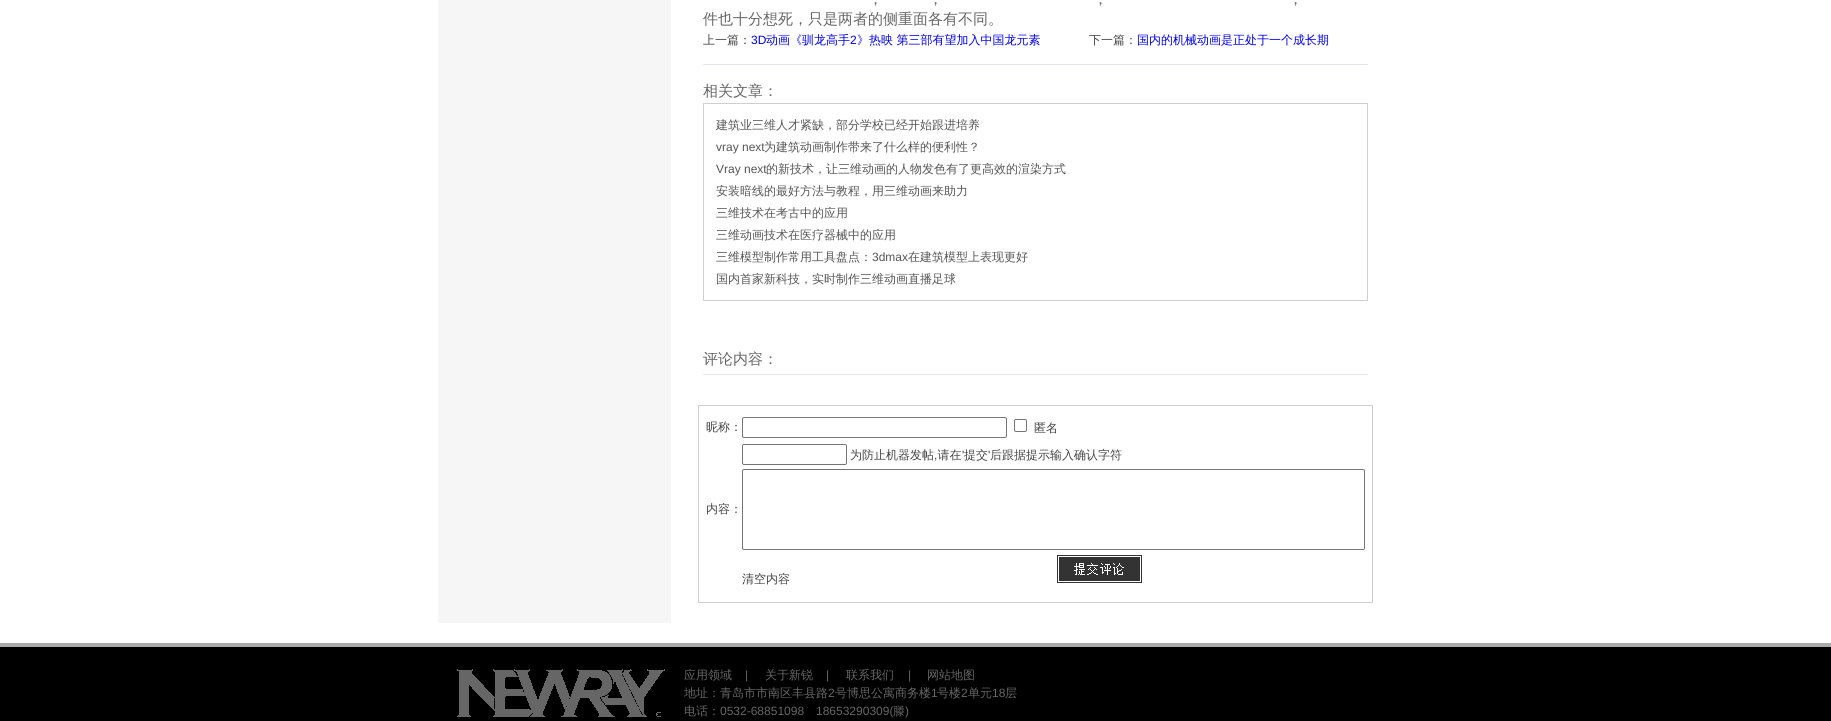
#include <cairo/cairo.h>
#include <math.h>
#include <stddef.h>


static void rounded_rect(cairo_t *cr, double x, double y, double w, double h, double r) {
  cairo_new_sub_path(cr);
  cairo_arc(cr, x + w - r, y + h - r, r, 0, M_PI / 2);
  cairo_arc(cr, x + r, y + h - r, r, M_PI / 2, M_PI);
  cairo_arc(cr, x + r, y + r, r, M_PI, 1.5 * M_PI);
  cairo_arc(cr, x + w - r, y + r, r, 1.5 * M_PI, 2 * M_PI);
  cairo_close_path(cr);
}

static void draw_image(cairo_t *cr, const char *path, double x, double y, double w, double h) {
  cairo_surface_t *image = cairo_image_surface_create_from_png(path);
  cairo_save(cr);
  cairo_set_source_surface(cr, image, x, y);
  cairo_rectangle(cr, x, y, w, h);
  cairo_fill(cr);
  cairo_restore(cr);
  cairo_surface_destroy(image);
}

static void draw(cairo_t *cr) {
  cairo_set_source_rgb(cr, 1, 1, 1);
  cairo_paint(cr);
  cairo_set_source_rgb(cr, 246 / 255.0, 246 / 255.0, 246 / 255.0);
  cairo_rectangle(cr, 438, 0, 233, 623);
  cairo_fill(cr);
  cairo_set_source_rgb(cr, 227 / 255.0, 231 / 255.0, 235 / 255.0);
  cairo_rectangle(cr, 703, 64, 665, 1);
  cairo_fill(cr);
  cairo_set_source_rgb(cr, 207 / 255.0, 207 / 255.0, 207 / 255.0);
  cairo_rectangle(cr, 703, 103, 665, 198);
  cairo_fill(cr);
  cairo_set_source_rgb(cr, 1, 1, 1);
  cairo_rectangle(cr, 704, 104, 663, 196);
  cairo_fill(cr);
  cairo_set_source_rgb(cr, 227 / 255.0, 231 / 255.0, 235 / 255.0);
  cairo_rectangle(cr, 703, 374, 665, 1);
  cairo_fill(cr);
  cairo_set_source_rgb(cr, 207 / 255.0, 207 / 255.0, 207 / 255.0);
  cairo_rectangle(cr, 698, 405, 675, 198);
  cairo_fill(cr);
  cairo_set_source_rgb(cr, 1, 1, 1);
  cairo_rectangle(cr, 699, 406, 673, 196);
  cairo_fill(cr);
  rounded_rect(cr, 742.5, 417.5, 264, 20, 1.5);
  cairo_set_source_rgb(cr, 118 / 255.0, 118 / 255.0, 118 / 255.0);
  cairo_set_line_width(cr, 1);
  cairo_stroke(cr);
  rounded_rect(cr, 1014.5, 419.5, 12, 12, 1.5);
  cairo_stroke(cr);
  rounded_rect(cr, 742.5, 444.5, 104, 20, 1.5);
  cairo_stroke(cr);
  rounded_rect(cr, 742.5, 469.5, 622, 80, 1.5);
  cairo_stroke(cr);
  draw_image(cr, "images/1.png", 1057, 555, 85, 28);
  cairo_set_source_rgb(cr, 0, 0, 0);
  cairo_rectangle(cr, 0, 647, 1831, 74);
  cairo_fill(cr);
  cairo_set_source_rgb(cr, 171 / 255.0, 171 / 255.0, 171 / 255.0);
  cairo_rectangle(cr, 0, 643, 1831, 4);
  cairo_fill(cr);
  draw_image(cr, "images/2.png", 457, 669, 208, 48);
  cairo_select_font_face(cr, "WenQuanYi Zen Hei Medium", CAIRO_FONT_SLANT_NORMAL, CAIRO_FONT_WEIGHT_NORMAL);
  cairo_set_font_size(cr, 15);
  cairo_set_source_rgb(cr, 102 / 255.0, 102 / 255.0, 102 / 255.0);
  cairo_move_to(cr, 868, 4);
  cairo_show_text(cr, "，");
  cairo_move_to(cr, 928, 4);
  cairo_show_text(cr, "，");
  cairo_move_to(cr, 1093, 4);
  cairo_show_text(cr, "，");
  cairo_move_to(cr, 1288, 4);
  cairo_show_text(cr, "，");
  cairo_move_to(cr, 703, 24);
  cairo_show_text(cr, "件也十分想死，只是两者的侧重面各有不同。");
  cairo_set_font_size(cr, 12);
  cairo_set_source_rgb(cr, 68 / 255.0, 68 / 255.0, 68 / 255.0);
  cairo_move_to(cr, 703, 44);
  cairo_show_text(cr, "上一篇：");
  cairo_select_font_face(cr, "Liberation Sans", CAIRO_FONT_SLANT_NORMAL, CAIRO_FONT_WEIGHT_NORMAL);
  cairo_set_source_rgb(cr, 0, 0, 238 / 255.0);
  cairo_move_to(cr, 751, 44);
  cairo_show_text(cr, "3D");
  cairo_select_font_face(cr, "WenQuanYi Zen Hei Medium", CAIRO_FONT_SLANT_NORMAL, CAIRO_FONT_WEIGHT_NORMAL);
  cairo_move_to(cr, 766, 44);
  cairo_show_text(cr, "动画《驯龙高手");
  cairo_select_font_face(cr, "Liberation Sans", CAIRO_FONT_SLANT_NORMAL, CAIRO_FONT_WEIGHT_NORMAL);
  cairo_move_to(cr, 850, 44);
  cairo_show_text(cr, "2");
  cairo_select_font_face(cr, "WenQuanYi Zen Hei Medium", CAIRO_FONT_SLANT_NORMAL, CAIRO_FONT_WEIGHT_NORMAL);
  cairo_move_to(cr, 857, 44);
  cairo_show_text(cr, "》热映 第三部有望加入中国龙元素");
  cairo_set_source_rgb(cr, 68 / 255.0, 68 / 255.0, 68 / 255.0);
  cairo_move_to(cr, 1089, 44);
  cairo_show_text(cr, "下一篇：");
  cairo_set_source_rgb(cr, 0, 0, 238 / 255.0);
  cairo_move_to(cr, 1137, 44);
  cairo_show_text(cr, "国内的机械动画是正处于一个成长期");
  cairo_set_font_size(cr, 15);
  cairo_set_source_rgb(cr, 102 / 255.0, 102 / 255.0, 102 / 255.0);
  cairo_move_to(cr, 703, 96);
  cairo_show_text(cr, "相关文章：");
  cairo_set_font_size(cr, 12);
  cairo_set_source_rgb(cr, 85 / 255.0, 85 / 255.0, 85 / 255.0);
  cairo_move_to(cr, 716, 129);
  cairo_show_text(cr, "建筑业三维人才紧缺，部分学校已经开始跟进培养");
  cairo_select_font_face(cr, "Liberation Sans", CAIRO_FONT_SLANT_NORMAL, CAIRO_FONT_WEIGHT_NORMAL);
  cairo_move_to(cr, 716, 151);
  cairo_show_text(cr, "vray next");
  cairo_select_font_face(cr, "WenQuanYi Zen Hei Medium", CAIRO_FONT_SLANT_NORMAL, CAIRO_FONT_WEIGHT_NORMAL);
  cairo_move_to(cr, 764, 151);
  cairo_show_text(cr, "为建筑动画制作带来了什么样的便利性？");
  cairo_select_font_face(cr, "Liberation Sans", CAIRO_FONT_SLANT_NORMAL, CAIRO_FONT_WEIGHT_NORMAL);
  cairo_move_to(cr, 716, 173);
  cairo_show_text(cr, "Vray next");
  cairo_select_font_face(cr, "WenQuanYi Zen Hei Medium", CAIRO_FONT_SLANT_NORMAL, CAIRO_FONT_WEIGHT_NORMAL);
  cairo_move_to(cr, 766, 173);
  cairo_show_text(cr, "的新技术，让三维动画的人物发色有了更高效的渲染方式");
  cairo_move_to(cr, 716, 195);
  cairo_show_text(cr, "安装暗线的最好方法与教程，用三维动画来助力");
  cairo_move_to(cr, 716, 217);
  cairo_show_text(cr, "三维技术在考古中的应用");
  cairo_move_to(cr, 716, 239);
  cairo_show_text(cr, "三维动画技术在医疗器械中的应用");
  cairo_move_to(cr, 716, 261);
  cairo_show_text(cr, "三维模型制作常用工具盘点：");
  cairo_select_font_face(cr, "Liberation Sans", CAIRO_FONT_SLANT_NORMAL, CAIRO_FONT_WEIGHT_NORMAL);
  cairo_move_to(cr, 872, 261);
  cairo_show_text(cr, "3dmax");
  cairo_select_font_face(cr, "WenQuanYi Zen Hei Medium", CAIRO_FONT_SLANT_NORMAL, CAIRO_FONT_WEIGHT_NORMAL);
  cairo_move_to(cr, 908, 261);
  cairo_show_text(cr, "在建筑模型上表现更好");
  cairo_move_to(cr, 716, 283);
  cairo_show_text(cr, "国内首家新科技，实时制作三维动画直播足球");
  cairo_set_font_size(cr, 15);
  cairo_set_source_rgb(cr, 102 / 255.0, 102 / 255.0, 102 / 255.0);
  cairo_move_to(cr, 703, 364);
  cairo_show_text(cr, "评论内容：");
  cairo_set_font_size(cr, 12);
  cairo_set_source_rgb(cr, 68 / 255.0, 68 / 255.0, 68 / 255.0);
  cairo_move_to(cr, 706, 431);
  cairo_show_text(cr, "昵称：");
  cairo_move_to(cr, 1034, 432);
  cairo_show_text(cr, "匿名");
  cairo_move_to(cr, 850, 459);
  cairo_show_text(cr, "为防止机器发帖 请在");
  cairo_select_font_face(cr, "Liberation Sans", CAIRO_FONT_SLANT_NORMAL, CAIRO_FONT_WEIGHT_NORMAL);
  cairo_move_to(cr, 962, 459);
  cairo_show_text(cr, "'");
  cairo_select_font_face(cr, "WenQuanYi Zen Hei Medium", CAIRO_FONT_SLANT_NORMAL, CAIRO_FONT_WEIGHT_NORMAL);
  cairo_move_to(cr, 964, 459);
  cairo_show_text(cr, "提交");
  cairo_select_font_face(cr, "Liberation Sans", CAIRO_FONT_SLANT_NORMAL, CAIRO_FONT_WEIGHT_NORMAL);
  cairo_move_to(cr, 988, 459);
  cairo_show_text(cr, "'");
  cairo_select_font_face(cr, "WenQuanYi Zen Hei Medium", CAIRO_FONT_SLANT_NORMAL, CAIRO_FONT_WEIGHT_NORMAL);
  cairo_move_to(cr, 990, 459);
  cairo_show_text(cr, "后跟据提示输入确认字符");
  cairo_select_font_face(cr, "Liberation Sans", CAIRO_FONT_SLANT_NORMAL, CAIRO_FONT_WEIGHT_NORMAL);
  cairo_move_to(cr, 934, 459);
  cairo_show_text(cr, ",");
  cairo_select_font_face(cr, "WenQuanYi Zen Hei Medium", CAIRO_FONT_SLANT_NORMAL, CAIRO_FONT_WEIGHT_NORMAL);
  cairo_move_to(cr, 706, 513);
  cairo_show_text(cr, "内容：");
  cairo_move_to(cr, 742, 583);
  cairo_show_text(cr, "清空内容");
  cairo_set_source_rgb(cr, 102 / 255.0, 102 / 255.0, 102 / 255.0);
  cairo_move_to(cr, 684, 679);
  cairo_show_text(cr, "应用领域");
  cairo_select_font_face(cr, "Liberation Sans", CAIRO_FONT_SLANT_NORMAL, CAIRO_FONT_WEIGHT_NORMAL);
  cairo_move_to(cr, 745, 679);
  cairo_show_text(cr, "|");
  cairo_select_font_face(cr, "WenQuanYi Zen Hei Medium", CAIRO_FONT_SLANT_NORMAL, CAIRO_FONT_WEIGHT_NORMAL);
  cairo_move_to(cr, 765, 679);
  cairo_show_text(cr, "关于新锐");
  cairo_select_font_face(cr, "Liberation Sans", CAIRO_FONT_SLANT_NORMAL, CAIRO_FONT_WEIGHT_NORMAL);
  cairo_move_to(cr, 826, 679);
  cairo_show_text(cr, "|");
  cairo_select_font_face(cr, "WenQuanYi Zen Hei Medium", CAIRO_FONT_SLANT_NORMAL, CAIRO_FONT_WEIGHT_NORMAL);
  cairo_move_to(cr, 846, 679);
  cairo_show_text(cr, "联系我们");
  cairo_select_font_face(cr, "Liberation Sans", CAIRO_FONT_SLANT_NORMAL, CAIRO_FONT_WEIGHT_NORMAL);
  cairo_move_to(cr, 908, 679);
  cairo_show_text(cr, "|");
  cairo_select_font_face(cr, "WenQuanYi Zen Hei Medium", CAIRO_FONT_SLANT_NORMAL, CAIRO_FONT_WEIGHT_NORMAL);
  cairo_move_to(cr, 927, 679);
  cairo_show_text(cr, "网站地图");
  cairo_move_to(cr, 684, 697);
  cairo_show_text(cr, "地址：青岛市市南区丰县路");
  cairo_select_font_face(cr, "Liberation Sans", CAIRO_FONT_SLANT_NORMAL, CAIRO_FONT_WEIGHT_NORMAL);
  cairo_move_to(cr, 828, 697);
  cairo_show_text(cr, "2");
  cairo_select_font_face(cr, "WenQuanYi Zen Hei Medium", CAIRO_FONT_SLANT_NORMAL, CAIRO_FONT_WEIGHT_NORMAL);
  cairo_move_to(cr, 835, 697);
  cairo_show_text(cr, "号博思公寓商务楼");
  cairo_select_font_face(cr, "Liberation Sans", CAIRO_FONT_SLANT_NORMAL, CAIRO_FONT_WEIGHT_NORMAL);
  cairo_move_to(cr, 931, 697);
  cairo_show_text(cr, "1");
  cairo_select_font_face(cr, "WenQuanYi Zen Hei Medium", CAIRO_FONT_SLANT_NORMAL, CAIRO_FONT_WEIGHT_NORMAL);
  cairo_move_to(cr, 937, 697);
  cairo_show_text(cr, "号楼");
  cairo_select_font_face(cr, "Liberation Sans", CAIRO_FONT_SLANT_NORMAL, CAIRO_FONT_WEIGHT_NORMAL);
  cairo_move_to(cr, 961, 697);
  cairo_show_text(cr, "2");
  cairo_select_font_face(cr, "WenQuanYi Zen Hei Medium", CAIRO_FONT_SLANT_NORMAL, CAIRO_FONT_WEIGHT_NORMAL);
  cairo_move_to(cr, 968, 697);
  cairo_show_text(cr, "单元");
  cairo_select_font_face(cr, "Liberation Sans", CAIRO_FONT_SLANT_NORMAL, CAIRO_FONT_WEIGHT_NORMAL);
  cairo_move_to(cr, 992, 697);
  cairo_show_text(cr, "18");
  cairo_select_font_face(cr, "WenQuanYi Zen Hei Medium", CAIRO_FONT_SLANT_NORMAL, CAIRO_FONT_WEIGHT_NORMAL);
  cairo_move_to(cr, 1005, 697);
  cairo_show_text(cr, "层");
  cairo_move_to(cr, 684, 715);
  cairo_show_text(cr, "电话：");
  cairo_select_font_face(cr, "Liberation Sans", CAIRO_FONT_SLANT_NORMAL, CAIRO_FONT_WEIGHT_NORMAL);
  cairo_move_to(cr, 720, 715);
  cairo_show_text(cr, "0532-68851098");
  cairo_move_to(cr, 816, 715);
  cairo_show_text(cr, "18653290309(");
  cairo_select_font_face(cr, "WenQuanYi Zen Hei Medium", CAIRO_FONT_SLANT_NORMAL, CAIRO_FONT_WEIGHT_NORMAL);
  cairo_move_to(cr, 893, 715);
  cairo_show_text(cr, "滕");
  cairo_select_font_face(cr, "Liberation Sans", CAIRO_FONT_SLANT_NORMAL, CAIRO_FONT_WEIGHT_NORMAL);
  cairo_move_to(cr, 905, 715);
  cairo_show_text(cr, ")");
}

int main(void) {
  cairo_surface_t *surface = cairo_image_surface_create(CAIRO_FORMAT_RGB24, 1831, 721);
  cairo_t *cr = cairo_create(surface);
  cairo_font_options_t *options = cairo_font_options_create();
  cairo_font_options_set_hint_metrics(options, CAIRO_HINT_METRICS_OFF);
  cairo_font_options_set_hint_style(options, CAIRO_HINT_STYLE_NONE);
  cairo_set_font_options(cr, options);
  cairo_set_miter_limit(cr, 4);
  draw(cr);
  cairo_surface_write_to_png(surface, "out.png");
  cairo_font_options_destroy(options);
  cairo_destroy(cr);
  cairo_surface_destroy(surface);
  return 0;
}
